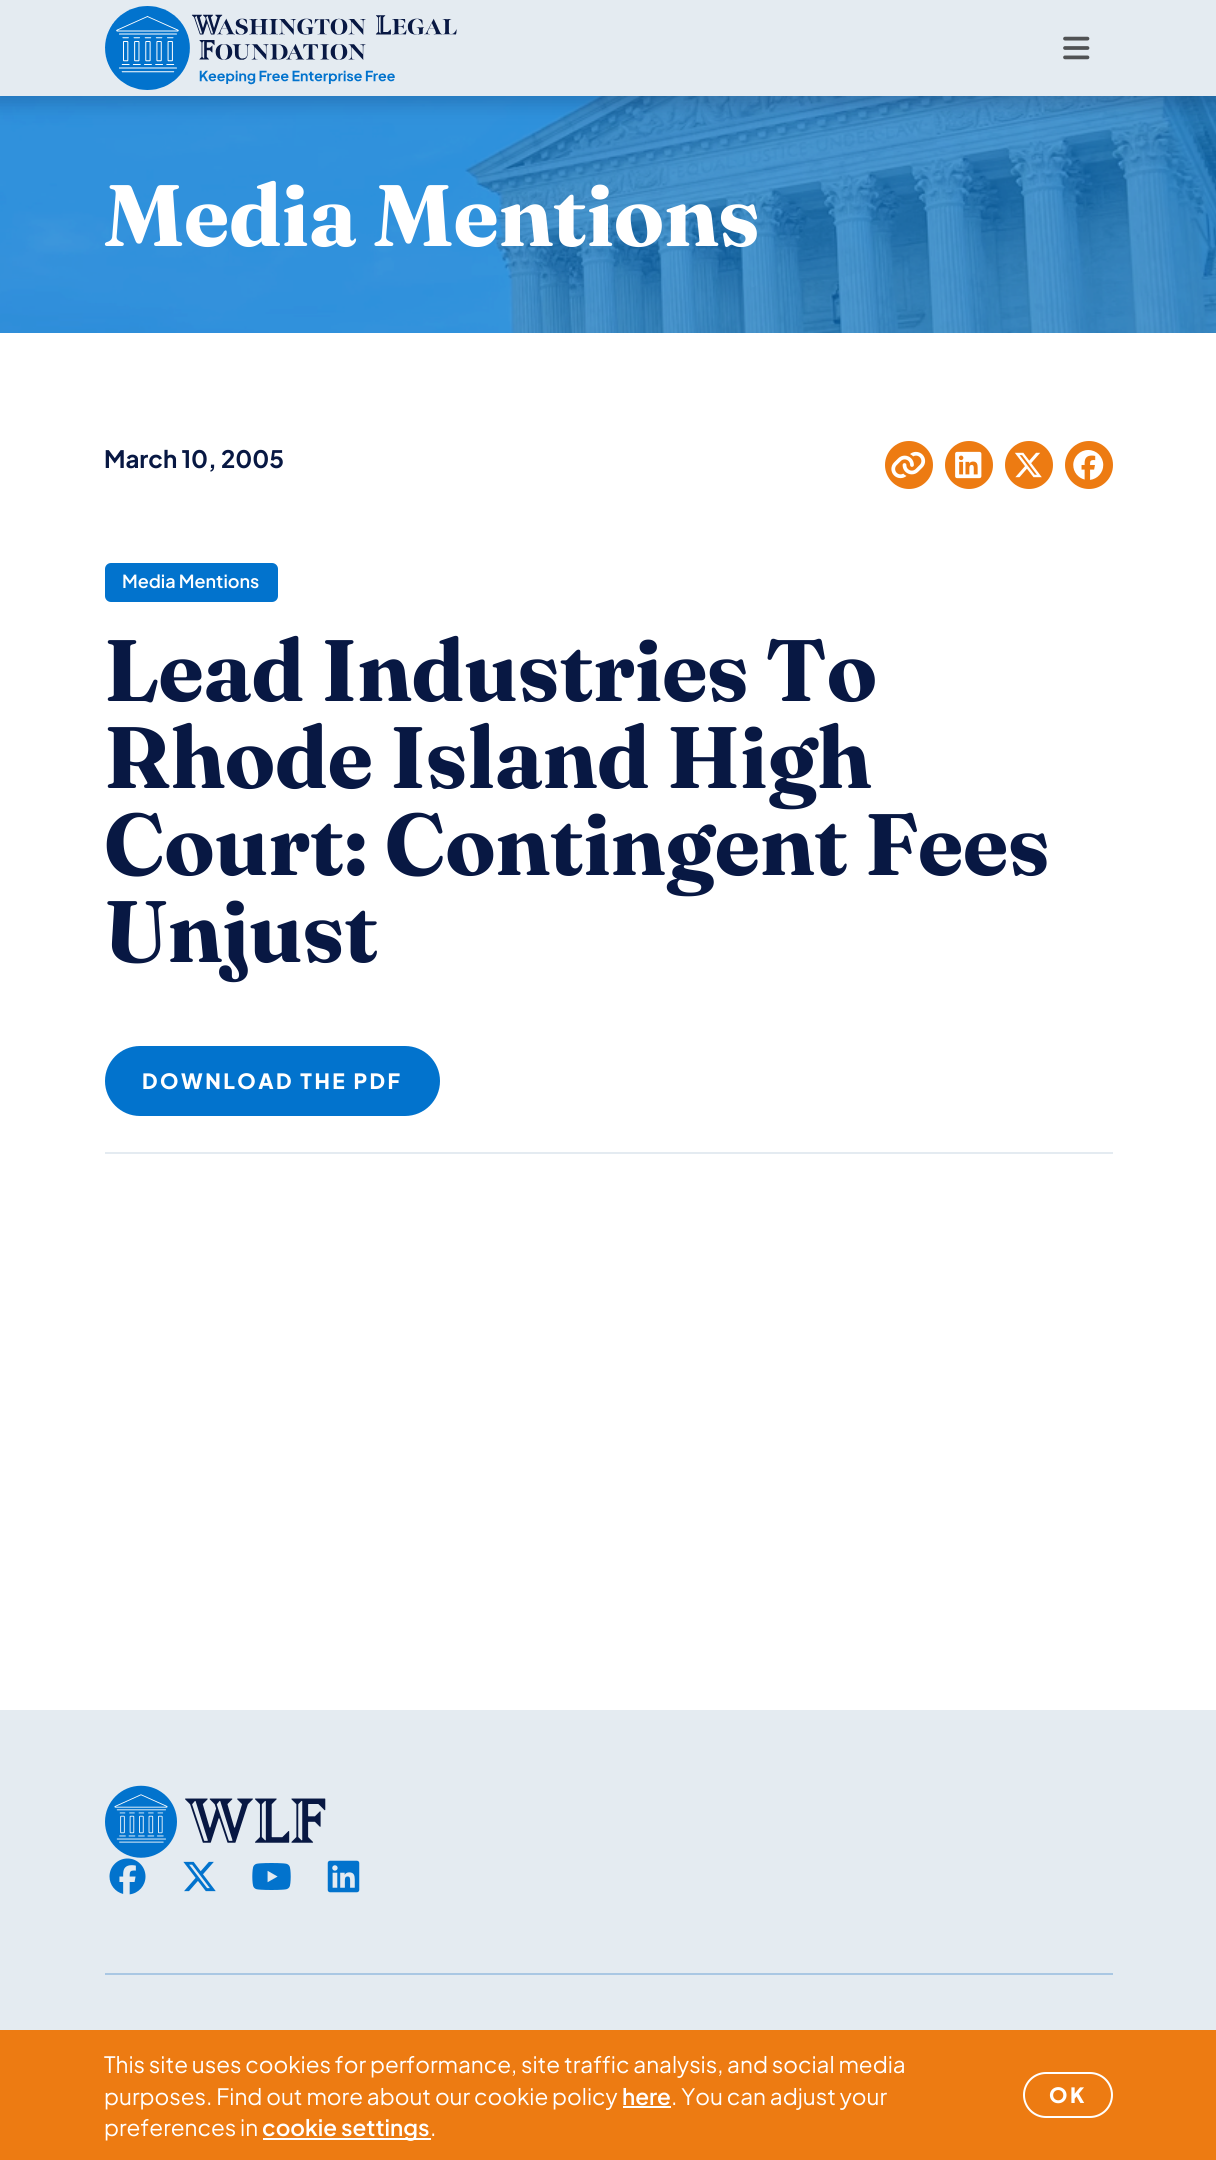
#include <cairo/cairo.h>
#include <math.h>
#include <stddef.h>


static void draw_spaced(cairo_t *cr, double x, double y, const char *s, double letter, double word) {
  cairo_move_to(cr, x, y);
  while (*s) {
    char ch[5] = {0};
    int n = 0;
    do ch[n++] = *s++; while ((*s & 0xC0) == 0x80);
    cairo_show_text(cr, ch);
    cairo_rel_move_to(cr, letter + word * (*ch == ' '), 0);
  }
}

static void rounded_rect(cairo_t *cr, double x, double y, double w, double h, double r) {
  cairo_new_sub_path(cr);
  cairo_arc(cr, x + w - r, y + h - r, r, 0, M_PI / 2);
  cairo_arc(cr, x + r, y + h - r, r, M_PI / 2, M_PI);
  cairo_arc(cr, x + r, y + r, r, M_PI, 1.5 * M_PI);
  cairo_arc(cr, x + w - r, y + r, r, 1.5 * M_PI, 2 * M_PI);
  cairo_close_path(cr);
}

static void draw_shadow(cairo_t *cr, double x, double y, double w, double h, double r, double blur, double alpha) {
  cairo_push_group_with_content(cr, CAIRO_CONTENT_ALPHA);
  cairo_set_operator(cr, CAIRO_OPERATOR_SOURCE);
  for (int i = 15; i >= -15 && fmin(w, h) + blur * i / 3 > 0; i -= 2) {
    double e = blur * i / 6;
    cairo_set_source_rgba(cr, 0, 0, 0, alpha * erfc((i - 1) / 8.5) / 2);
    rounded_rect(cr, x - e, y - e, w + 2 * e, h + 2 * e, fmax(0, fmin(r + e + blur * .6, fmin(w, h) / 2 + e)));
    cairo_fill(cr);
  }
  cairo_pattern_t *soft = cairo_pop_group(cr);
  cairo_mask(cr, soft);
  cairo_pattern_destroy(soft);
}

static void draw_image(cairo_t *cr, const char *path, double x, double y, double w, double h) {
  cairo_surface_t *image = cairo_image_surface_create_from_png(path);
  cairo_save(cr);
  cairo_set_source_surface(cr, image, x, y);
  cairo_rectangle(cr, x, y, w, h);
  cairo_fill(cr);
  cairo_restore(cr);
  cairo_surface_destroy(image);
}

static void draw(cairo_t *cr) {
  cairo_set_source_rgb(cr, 1, 1, 1);
  cairo_paint(cr);
  cairo_set_source_rgb(cr, 2 / 255.0, 115 / 255.0, 205 / 255.0);
  cairo_rectangle(cr, 0, 96, 1216, 237);
  cairo_fill(cr);
  draw_image(cr, "images/3.png", 0, 96, 1216, 237);
  cairo_set_source_rgb(cr, 8 / 255.0, 24 / 255.0, 67 / 255.0);
  draw_shadow(cr, -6, -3, 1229, 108, 0, 9, 0.2);
  cairo_set_source_rgb(cr, 228 / 255.0, 235 / 255.0, 241 / 255.0);
  cairo_rectangle(cr, 0, 0, 1216, 96);
  cairo_fill(cr);
  draw_image(cr, "images/1.png", 105, 6, 352, 84);
  draw_image(cr, "images/2.png", 1063, 36, 27, 24);
  cairo_set_source_rgb(cr, 237 / 255.0, 123 / 255.0, 18 / 255.0);
  cairo_arc(cr, 909, 465, 24, 0, 2 * M_PI);
  cairo_fill(cr);
  draw_image(cr, "images/4.png", 891, 451, 35, 28);
  cairo_arc(cr, 969, 465, 24, 0, 2 * M_PI);
  cairo_fill(cr);
  draw_image(cr, "images/5.png", 955, 451, 27, 28);
  cairo_arc(cr, 1029, 465, 24, 0, 2 * M_PI);
  cairo_fill(cr);
  draw_image(cr, "images/6.png", 1014, 452, 28, 26);
  cairo_arc(cr, 1089, 465, 24, 0, 2 * M_PI);
  cairo_fill(cr);
  draw_image(cr, "images/7.png", 1073, 450, 31, 30);
  cairo_set_source_rgb(cr, 2 / 255.0, 115 / 255.0, 205 / 255.0);
  rounded_rect(cr, 105, 563, 173, 39, 6);
  cairo_fill(cr);
  rounded_rect(cr, 106, 1047, 333, 68, 34);
  cairo_fill_preserve(cr);
  cairo_stroke(cr);
  cairo_set_source_rgb(cr, 228 / 255.0, 235 / 255.0, 241 / 255.0);
  cairo_rectangle(cr, 105, 1152, 1008, 2);
  cairo_fill(cr);
  cairo_rectangle(cr, 0, 1710, 1216, 320);
  cairo_fill(cr);
  draw_image(cr, "images/8.png", 105, 1785, 221, 73);
  draw_image(cr, "images/9.png", 109, 1858, 37, 37);
  draw_image(cr, "images/10.png", 183, 1861, 33, 31);
  draw_image(cr, "images/11.png", 252, 1863, 39, 27);
  draw_image(cr, "images/12.png", 327, 1860, 33, 33);
  cairo_set_source_rgb(cr, 169 / 255.0, 199 / 255.0, 227 / 255.0);
  cairo_rectangle(cr, 105, 1973, 1008, 2);
  cairo_fill(cr);
  cairo_set_source_rgb(cr, 237 / 255.0, 123 / 255.0, 18 / 255.0);
  cairo_rectangle(cr, 0, 2030, 1216, 130);
  cairo_fill(cr);
  cairo_set_source_rgb(cr, 1, 1, 1);
  cairo_rectangle(cr, 623, 2106, 48, 2);
  cairo_fill(cr);
  cairo_rectangle(cr, 263, 2138, 168, 2);
  cairo_fill(cr);
  rounded_rect(cr, 1024, 2073, 88, 44, 22);
  cairo_stroke(cr);
  cairo_select_font_face(cr, "Fraunces", CAIRO_FONT_SLANT_NORMAL, CAIRO_FONT_WEIGHT_BOLD);
  cairo_set_font_size(cr, 87);
  cairo_move_to(cr, 104, 246);
  cairo_show_text(cr, "Media Mentions");
  cairo_select_font_face(cr, "Plus Jakarta Sans", CAIRO_FONT_SLANT_NORMAL, CAIRO_FONT_WEIGHT_BOLD);
  cairo_set_font_size(cr, 24);
  cairo_set_source_rgb(cr, 8 / 255.0, 24 / 255.0, 67 / 255.0);
  cairo_move_to(cr, 104, 468);
  cairo_show_text(cr, "March 10, 2005");
  cairo_select_font_face(cr, "Plus Jakarta Sans SemiBold", CAIRO_FONT_SLANT_NORMAL, CAIRO_FONT_WEIGHT_NORMAL);
  cairo_set_font_size(cr, 18);
  cairo_set_source_rgb(cr, 1, 1, 1);
  cairo_move_to(cr, 122, 588);
  cairo_show_text(cr, "Media Mentions");
  cairo_select_font_face(cr, "Fraunces", CAIRO_FONT_SLANT_NORMAL, CAIRO_FONT_WEIGHT_BOLD);
  cairo_set_font_size(cr, 87);
  cairo_set_source_rgb(cr, 8 / 255.0, 24 / 255.0, 67 / 255.0);
  cairo_move_to(cr, 104, 701);
  cairo_show_text(cr, "Lead Industries To");
  cairo_move_to(cr, 104, 788);
  cairo_show_text(cr, "Rhode Island High");
  cairo_move_to(cr, 104, 875);
  cairo_show_text(cr, "Court: Contingent Fees");
  cairo_move_to(cr, 104, 962);
  cairo_show_text(cr, "Unjust");
  cairo_select_font_face(cr, "Plus Jakarta Sans ExtraBold", CAIRO_FONT_SLANT_NORMAL, CAIRO_FONT_WEIGHT_NORMAL);
  cairo_set_font_size(cr, 21);
  cairo_set_source_rgb(cr, 1, 1, 1);
  draw_spaced(cr, 142, 1089, "DOWNLOAD THE PDF", 2.5, 0);
  cairo_select_font_face(cr, "Plus Jakarta Sans", CAIRO_FONT_SLANT_NORMAL, CAIRO_FONT_WEIGHT_NORMAL);
  cairo_set_font_size(cr, 22.5);
  cairo_move_to(cr, 104, 2073);
  cairo_show_text(cr, "This site uses cookies for performance, site traffic analysis, and social media");
  cairo_move_to(cr, 104, 2105);
  cairo_show_text(cr, "purposes. Find out more about our cookie policy");
  cairo_select_font_face(cr, "Plus Jakarta Sans SemiBold", CAIRO_FONT_SLANT_NORMAL, CAIRO_FONT_WEIGHT_NORMAL);
  cairo_move_to(cr, 622, 2105);
  cairo_show_text(cr, "here");
  cairo_select_font_face(cr, "Plus Jakarta Sans", CAIRO_FONT_SLANT_NORMAL, CAIRO_FONT_WEIGHT_NORMAL);
  cairo_move_to(cr, 671, 2105);
  cairo_show_text(cr, ". You can adjust your");
  cairo_move_to(cr, 104, 2136);
  cairo_show_text(cr, "preferences in");
  cairo_select_font_face(cr, "Plus Jakarta Sans SemiBold", CAIRO_FONT_SLANT_NORMAL, CAIRO_FONT_WEIGHT_NORMAL);
  cairo_move_to(cr, 262, 2136);
  cairo_show_text(cr, "cookie settings");
  cairo_select_font_face(cr, "Plus Jakarta Sans", CAIRO_FONT_SLANT_NORMAL, CAIRO_FONT_WEIGHT_NORMAL);
  cairo_move_to(cr, 430, 2136);
  cairo_show_text(cr, ".");
  cairo_select_font_face(cr, "Plus Jakarta Sans ExtraBold", CAIRO_FONT_SLANT_NORMAL, CAIRO_FONT_WEIGHT_NORMAL);
  cairo_set_font_size(cr, 21);
  draw_spaced(cr, 1049, 2103, "OK", 2.5, 0);
}

int main(void) {
  cairo_surface_t *surface = cairo_image_surface_create(CAIRO_FORMAT_RGB24, 1216, 2160);
  cairo_t *cr = cairo_create(surface);
  cairo_font_options_t *options = cairo_font_options_create();
  cairo_font_options_set_hint_metrics(options, CAIRO_HINT_METRICS_OFF);
  cairo_font_options_set_hint_style(options, CAIRO_HINT_STYLE_NONE);
  cairo_set_font_options(cr, options);
  cairo_set_miter_limit(cr, 4);
  draw(cr);
  cairo_surface_write_to_png(surface, "out.png");
  cairo_font_options_destroy(options);
  cairo_destroy(cr);
  cairo_surface_destroy(surface);
  return 0;
}
